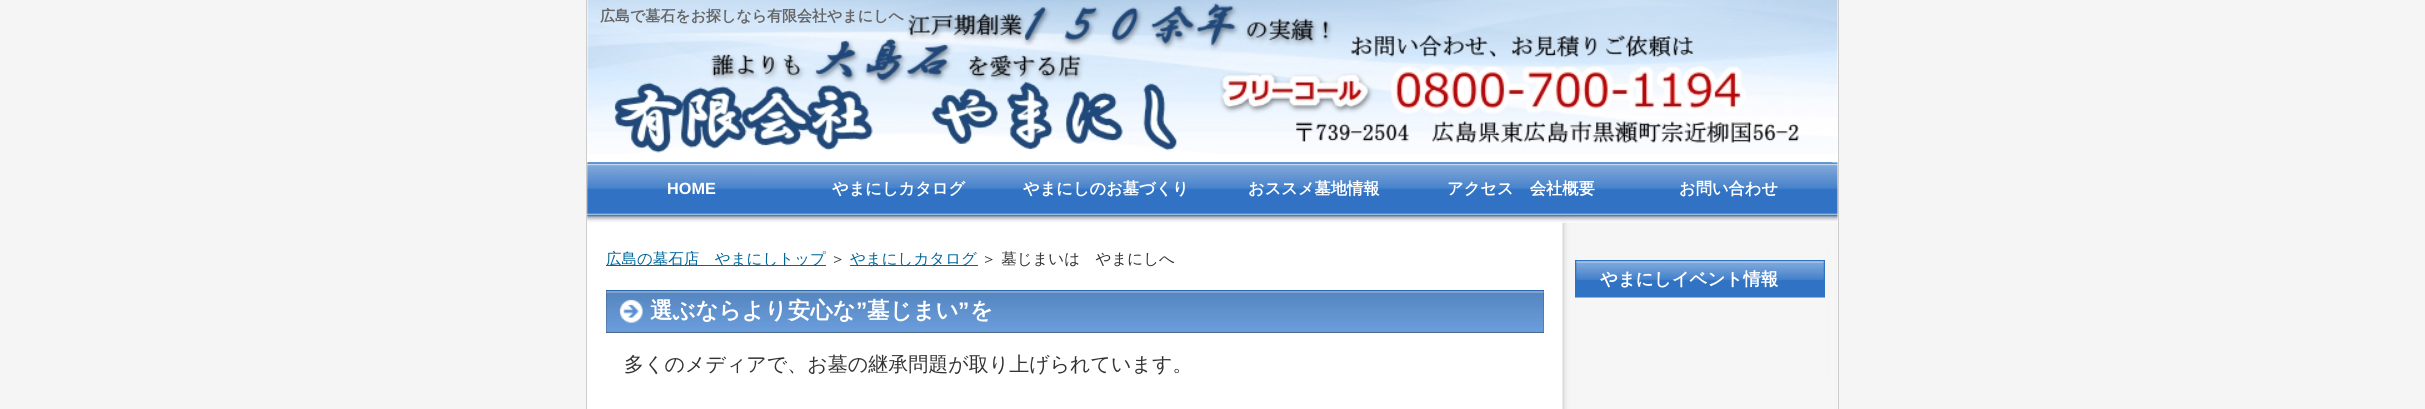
#include <cairo/cairo.h>
#include <math.h>
#include <stddef.h>


static void draw_image(cairo_t *cr, const char *path, double x, double y, double w, double h) {
  cairo_surface_t *image = cairo_image_surface_create_from_png(path);
  cairo_save(cr);
  cairo_set_source_surface(cr, image, x, y);
  cairo_rectangle(cr, x, y, w, h);
  cairo_fill(cr);
  cairo_restore(cr);
  cairo_surface_destroy(image);
}

static void draw(cairo_t *cr) {
  cairo_set_source_rgb(cr, 245 / 255.0, 245 / 255.0, 245 / 255.0);
  cairo_paint(cr);
  cairo_set_source_rgb(cr, 1, 1, 1);
  cairo_rectangle(cr, 587, 0, 1251, 409);
  cairo_fill(cr);
  cairo_set_source_rgb(cr, 204 / 255.0, 204 / 255.0, 204 / 255.0);
  cairo_rectangle(cr, 1838, 0, 1, 409);
  cairo_fill(cr);
  cairo_rectangle(cr, 586, 0, 1, 409);
  cairo_fill(cr);
  draw_image(cr, "images/1.png", 587, 0, 1251, 154);
  cairo_set_source_rgb(cr, 235 / 255.0, 235 / 255.0, 235 / 255.0);
  cairo_rectangle(cr, 1837, 163, 1, 1);
  cairo_fill(cr);
  draw_image(cr, "images/6.png", 1562, 222, 276, 187);
  draw_image(cr, "images/2.png", 587, 162, 1251, 61);
  draw_image(cr, "images/3.png", 587, 162, 208, 59);
  draw_image(cr, "images/4.png", 795, 162, 208, 1);
  draw_image(cr, "images/5.png", 1002, 162, 208, 1);
  draw_image(cr, "images/4.png", 1210, 162, 208, 1);
  draw_image(cr, "images/5.png", 1417, 162, 208, 1);
  draw_image(cr, "images/4.png", 1625, 162, 208, 1);
  cairo_set_source_rgb(cr, 0, 102 / 255.0, 153 / 255.0);
  cairo_rectangle(cr, 606, 265, 220, 1);
  cairo_fill(cr);
  cairo_rectangle(cr, 850, 265, 128, 1);
  cairo_fill(cr);
  cairo_set_source_rgb(cr, 51 / 255.0, 51 / 255.0, 51 / 255.0);
  cairo_rectangle(cr, 606, 290, 938, 43);
  cairo_fill(cr);
  draw_image(cr, "images/7.png", 606, 290, 938, 43);
  draw_image(cr, "images/8.png", 1575, 260, 250, 38);
  cairo_select_font_face(cr, "WenQuanYi Zen Hei", CAIRO_FONT_SLANT_NORMAL, CAIRO_FONT_WEIGHT_BOLD);
  cairo_set_font_size(cr, 15);
  cairo_set_source_rgb(cr, 102 / 255.0, 102 / 255.0, 102 / 255.0);
  cairo_move_to(cr, 600, 21);
  cairo_show_text(cr, "広島で墓石をお探しなら有限会社やまにしへ");
  cairo_select_font_face(cr, "Liberation Sans", CAIRO_FONT_SLANT_NORMAL, CAIRO_FONT_WEIGHT_BOLD);
  cairo_set_font_size(cr, 16.25);
  cairo_set_source_rgb(cr, 1, 1, 1);
  cairo_move_to(cr, 667, 194);
  cairo_show_text(cr, "HOME");
  cairo_select_font_face(cr, "WenQuanYi Zen Hei", CAIRO_FONT_SLANT_NORMAL, CAIRO_FONT_WEIGHT_BOLD);
  cairo_move_to(cr, 832, 194);
  cairo_show_text(cr, "やまにしカタログ");
  cairo_move_to(cr, 1023, 194);
  cairo_show_text(cr, "やまにしのお墓づくり");
  cairo_move_to(cr, 1248, 194);
  cairo_show_text(cr, "おススメ墓地情報");
  cairo_move_to(cr, 1447, 194);
  cairo_show_text(cr, "アクセス　会社概要");
  cairo_move_to(cr, 1679, 194);
  cairo_show_text(cr, "お問い合わせ");
  cairo_select_font_face(cr, "WenQuanYi Zen Hei Medium", CAIRO_FONT_SLANT_NORMAL, CAIRO_FONT_WEIGHT_NORMAL);
  cairo_set_font_size(cr, 15.5);
  cairo_set_source_rgb(cr, 0, 102 / 255.0, 153 / 255.0);
  cairo_move_to(cr, 606, 264);
  cairo_show_text(cr, "広島の墓石店　やまにしトップ");
  cairo_set_source_rgb(cr, 51 / 255.0, 51 / 255.0, 51 / 255.0);
  cairo_move_to(cr, 830, 264);
  cairo_show_text(cr, "＞");
  cairo_set_source_rgb(cr, 0, 102 / 255.0, 153 / 255.0);
  cairo_move_to(cr, 850, 264);
  cairo_show_text(cr, "やまにしカタログ");
  cairo_set_source_rgb(cr, 51 / 255.0, 51 / 255.0, 51 / 255.0);
  cairo_move_to(cr, 981, 264);
  cairo_show_text(cr, "＞ 墓じまいは　やまにしへ");
  cairo_select_font_face(cr, "WenQuanYi Zen Hei", CAIRO_FONT_SLANT_NORMAL, CAIRO_FONT_WEIGHT_BOLD);
  cairo_set_font_size(cr, 22.5);
  cairo_set_source_rgb(cr, 1, 1, 1);
  cairo_move_to(cr, 650, 318);
  cairo_show_text(cr, "選ぶならより安心な");
  cairo_select_font_face(cr, "Liberation Sans", CAIRO_FONT_SLANT_NORMAL, CAIRO_FONT_WEIGHT_BOLD);
  cairo_move_to(cr, 856, 318);
  cairo_show_text(cr, "”");
  cairo_select_font_face(cr, "WenQuanYi Zen Hei", CAIRO_FONT_SLANT_NORMAL, CAIRO_FONT_WEIGHT_BOLD);
  cairo_move_to(cr, 867, 318);
  cairo_show_text(cr, "墓じまい");
  cairo_select_font_face(cr, "Liberation Sans", CAIRO_FONT_SLANT_NORMAL, CAIRO_FONT_WEIGHT_BOLD);
  cairo_move_to(cr, 958, 318);
  cairo_show_text(cr, "”");
  cairo_select_font_face(cr, "WenQuanYi Zen Hei", CAIRO_FONT_SLANT_NORMAL, CAIRO_FONT_WEIGHT_BOLD);
  cairo_move_to(cr, 970, 318);
  cairo_show_text(cr, "を");
  cairo_select_font_face(cr, "WenQuanYi Zen Hei Medium", CAIRO_FONT_SLANT_NORMAL, CAIRO_FONT_WEIGHT_NORMAL);
  cairo_set_font_size(cr, 20);
  cairo_set_source_rgb(cr, 51 / 255.0, 51 / 255.0, 51 / 255.0);
  cairo_move_to(cr, 624, 371);
  cairo_show_text(cr, "多くのメディアで、お墓の継承問題が取り上げられています。");
  cairo_select_font_face(cr, "WenQuanYi Zen Hei", CAIRO_FONT_SLANT_NORMAL, CAIRO_FONT_WEIGHT_BOLD);
  cairo_set_font_size(cr, 17.5);
  cairo_set_source_rgb(cr, 1, 1, 1);
  cairo_move_to(cr, 1600, 285);
  cairo_show_text(cr, "やまにしイベント情報");
}

int main(void) {
  cairo_surface_t *surface = cairo_image_surface_create(CAIRO_FORMAT_RGB24, 2425, 409);
  cairo_t *cr = cairo_create(surface);
  cairo_font_options_t *options = cairo_font_options_create();
  cairo_font_options_set_hint_metrics(options, CAIRO_HINT_METRICS_OFF);
  cairo_font_options_set_hint_style(options, CAIRO_HINT_STYLE_NONE);
  cairo_set_font_options(cr, options);
  cairo_set_miter_limit(cr, 4);
  draw(cr);
  cairo_surface_write_to_png(surface, "out.png");
  cairo_font_options_destroy(options);
  cairo_destroy(cr);
  cairo_surface_destroy(surface);
  return 0;
}
